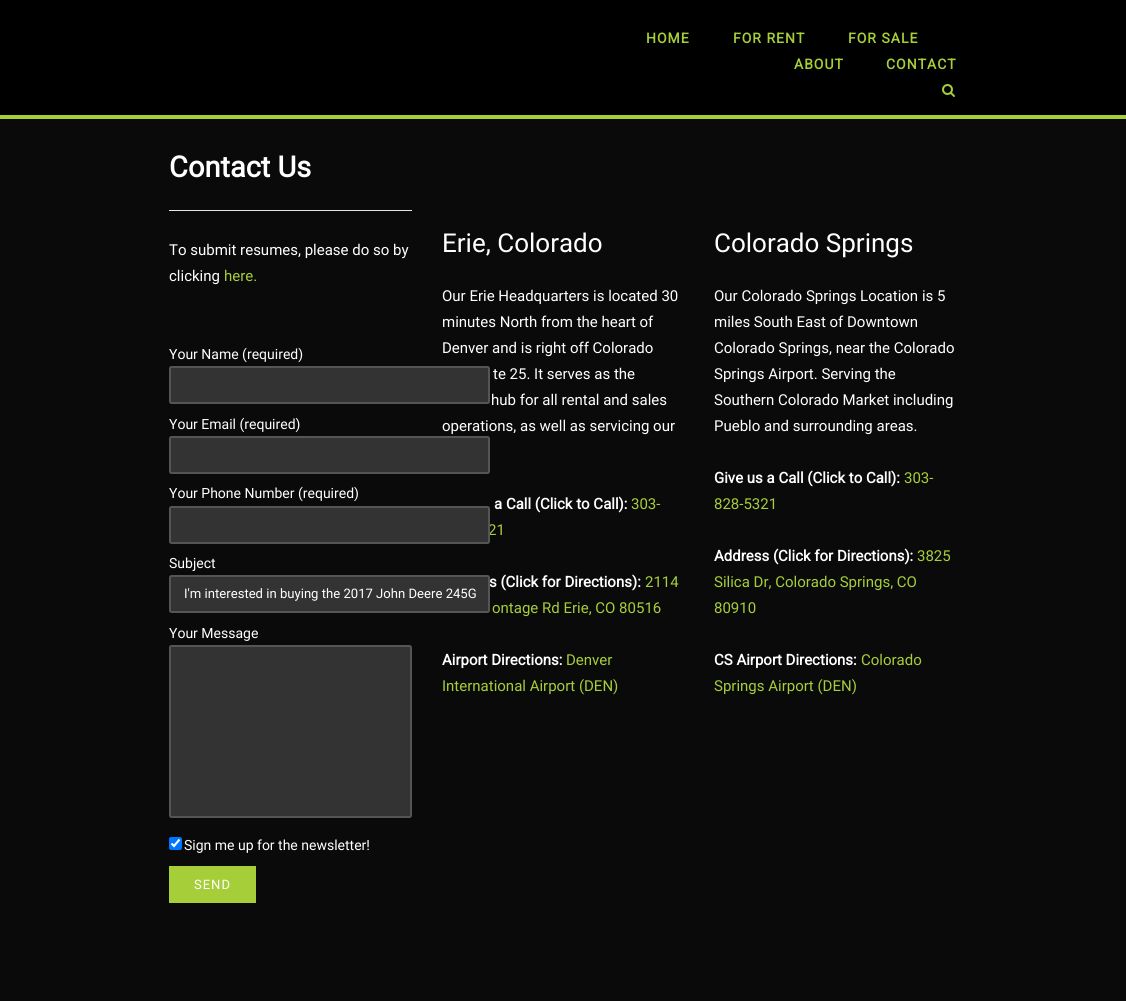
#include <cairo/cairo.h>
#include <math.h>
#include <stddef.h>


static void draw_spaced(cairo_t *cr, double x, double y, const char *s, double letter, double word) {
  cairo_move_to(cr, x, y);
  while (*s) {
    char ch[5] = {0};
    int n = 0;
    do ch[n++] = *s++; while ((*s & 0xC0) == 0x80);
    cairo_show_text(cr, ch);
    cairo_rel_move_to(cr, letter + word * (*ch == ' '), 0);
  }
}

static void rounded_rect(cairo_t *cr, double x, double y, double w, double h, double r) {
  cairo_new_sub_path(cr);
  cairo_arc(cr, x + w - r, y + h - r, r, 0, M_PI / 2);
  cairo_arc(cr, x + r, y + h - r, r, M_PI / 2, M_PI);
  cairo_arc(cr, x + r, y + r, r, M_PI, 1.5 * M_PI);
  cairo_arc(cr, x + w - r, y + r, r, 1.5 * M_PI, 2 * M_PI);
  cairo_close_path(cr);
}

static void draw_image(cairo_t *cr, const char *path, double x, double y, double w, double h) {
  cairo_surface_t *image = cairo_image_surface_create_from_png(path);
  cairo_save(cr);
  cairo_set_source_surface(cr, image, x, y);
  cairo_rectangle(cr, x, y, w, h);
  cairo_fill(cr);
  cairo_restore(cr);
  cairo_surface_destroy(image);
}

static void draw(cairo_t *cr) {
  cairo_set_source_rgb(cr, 10 / 255.0, 10 / 255.0, 10 / 255.0);
  cairo_paint(cr);
  cairo_set_source_rgb(cr, 0, 0, 0);
  cairo_rectangle(cr, 0, 0, 1126, 115);
  cairo_fill(cr);
  cairo_set_source_rgb(cr, 166 / 255.0, 206 / 255.0, 57 / 255.0);
  cairo_rectangle(cr, 0, 115, 1126, 4);
  cairo_fill(cr);
  draw_image(cr, "images/1.png", 942, 84, 13, 13);
  cairo_set_source_rgb(cr, 230 / 255.0, 230 / 255.0, 230 / 255.0);
  cairo_rectangle(cr, 169, 210, 243, 1);
  cairo_fill(cr);
  cairo_set_source_rgb(cr, 51 / 255.0, 51 / 255.0, 51 / 255.0);
  rounded_rect(cr, 170, 367, 319, 36, 1.5);
  cairo_fill_preserve(cr);
  cairo_set_source_rgb(cr, 85 / 255.0, 85 / 255.0, 85 / 255.0);
  cairo_stroke(cr);
  cairo_set_source_rgb(cr, 51 / 255.0, 51 / 255.0, 51 / 255.0);
  rounded_rect(cr, 170, 437, 319, 36, 1.5);
  cairo_fill_preserve(cr);
  cairo_set_source_rgb(cr, 85 / 255.0, 85 / 255.0, 85 / 255.0);
  cairo_stroke(cr);
  cairo_set_source_rgb(cr, 51 / 255.0, 51 / 255.0, 51 / 255.0);
  rounded_rect(cr, 170, 646, 241, 171, 1.5);
  cairo_fill_preserve(cr);
  cairo_set_source_rgb(cr, 85 / 255.0, 85 / 255.0, 85 / 255.0);
  cairo_stroke(cr);
  cairo_set_source_rgb(cr, 0, 117 / 255.0, 1);
  rounded_rect(cr, 169, 837, 13, 13, 2);
  cairo_fill(cr);
  cairo_new_path(cr);
  cairo_move_to(cr, 171.5, 843.5);
  cairo_line_to(cr, 174, 846);
  cairo_line_to(cr, 179.5, 839.5);
  cairo_set_source_rgb(cr, 1, 1, 1);
  cairo_set_line_width(cr, 2.1);
  cairo_stroke(cr);
  cairo_set_source_rgb(cr, 166 / 255.0, 206 / 255.0, 57 / 255.0);
  cairo_rectangle(cr, 169, 866, 87, 37);
  cairo_fill(cr);
  cairo_select_font_face(cr, "Roboto", CAIRO_FONT_SLANT_NORMAL, CAIRO_FONT_WEIGHT_BOLD);
  cairo_set_font_size(cr, 14);
  draw_spaced(cr, 646, 43, "HOME", 1, 0);
  draw_spaced(cr, 733, 43, "FOR RENT", 1, 0);
  draw_spaced(cr, 848, 43, "FOR SALE", 1, 0);
  draw_spaced(cr, 794, 69, "ABOUT", 1, 0);
  draw_spaced(cr, 886, 69, "CONTACT", 1, 0);
  cairo_set_font_size(cr, 29);
  cairo_set_source_rgb(cr, 1, 1, 1);
  cairo_move_to(cr, 169, 177);
  cairo_show_text(cr, "Contact Us");
  cairo_select_font_face(cr, "Roboto", CAIRO_FONT_SLANT_NORMAL, CAIRO_FONT_WEIGHT_NORMAL);
  cairo_set_font_size(cr, 15);
  cairo_move_to(cr, 169, 255);
  cairo_show_text(cr, "To submit resumes, please do so by");
  cairo_move_to(cr, 169, 281);
  cairo_show_text(cr, "clicking");
  cairo_set_source_rgb(cr, 166 / 255.0, 206 / 255.0, 57 / 255.0);
  cairo_move_to(cr, 224, 281);
  cairo_show_text(cr, "here.");
  cairo_set_font_size(cr, 14);
  cairo_set_source_rgb(cr, 1, 1, 1);
  cairo_move_to(cr, 169, 359);
  cairo_show_text(cr, "Your Name (required)");
  cairo_move_to(cr, 169, 429);
  cairo_show_text(cr, "Your Email (required)");
  cairo_move_to(cr, 169, 498);
  cairo_show_text(cr, "Your Phone Number (required)");
  cairo_move_to(cr, 169, 568);
  cairo_show_text(cr, "Subject");
  cairo_move_to(cr, 169, 638);
  cairo_show_text(cr, "Your Message");
  cairo_move_to(cr, 184, 850);
  cairo_show_text(cr, "Sign me up for the newsletter!");
  cairo_set_font_size(cr, 13);
  draw_spaced(cr, 194, 889, "SEND", 1, 0);
  cairo_set_font_size(cr, 26);
  cairo_move_to(cr, 442, 252);
  cairo_show_text(cr, "Erie, Colorado");
  cairo_set_font_size(cr, 15);
  cairo_move_to(cr, 442, 301);
  cairo_show_text(cr, "Our Erie Headquarters is located 30");
  cairo_move_to(cr, 442, 327);
  cairo_show_text(cr, "minutes North from the heart of");
  cairo_move_to(cr, 442, 353);
  cairo_show_text(cr, "Denver and is right off Colorado");
  cairo_move_to(cr, 493, 379);
  cairo_show_text(cr, "te 25. It serves as the");
  cairo_move_to(cr, 491, 405);
  cairo_show_text(cr, "hub for all rental and sales");
  cairo_move_to(cr, 442, 431);
  cairo_show_text(cr, "operations, as well as servicing our");
  cairo_select_font_face(cr, "Roboto", CAIRO_FONT_SLANT_NORMAL, CAIRO_FONT_WEIGHT_BOLD);
  cairo_move_to(cr, 494, 509);
  cairo_show_text(cr, "a Call (Click to Call):");
  cairo_select_font_face(cr, "Roboto", CAIRO_FONT_SLANT_NORMAL, CAIRO_FONT_WEIGHT_NORMAL);
  cairo_set_source_rgb(cr, 166 / 255.0, 206 / 255.0, 57 / 255.0);
  cairo_move_to(cr, 631, 509);
  cairo_show_text(cr, "303-");
  cairo_move_to(cr, 488, 535);
  cairo_show_text(cr, "21");
  cairo_set_source_rgb(cr, 51 / 255.0, 51 / 255.0, 51 / 255.0);
  rounded_rect(cr, 170, 507, 319, 36, 1.5);
  cairo_fill_preserve(cr);
  cairo_set_source_rgb(cr, 85 / 255.0, 85 / 255.0, 85 / 255.0);
  cairo_set_line_width(cr, 2);
  cairo_stroke(cr);
  cairo_select_font_face(cr, "Roboto", CAIRO_FONT_SLANT_NORMAL, CAIRO_FONT_WEIGHT_BOLD);
  cairo_set_source_rgb(cr, 1, 1, 1);
  cairo_move_to(cr, 489, 587);
  cairo_show_text(cr, "s (Click for Directions):");
  cairo_set_source_rgb(cr, 51 / 255.0, 51 / 255.0, 51 / 255.0);
  rounded_rect(cr, 170, 576, 319, 36, 1.5);
  cairo_fill_preserve(cr);
  cairo_set_source_rgb(cr, 85 / 255.0, 85 / 255.0, 85 / 255.0);
  cairo_stroke(cr);
  cairo_select_font_face(cr, "Roboto", CAIRO_FONT_SLANT_NORMAL, CAIRO_FONT_WEIGHT_NORMAL);
  cairo_set_font_size(cr, 13.1);
  cairo_set_source_rgb(cr, 1, 1, 1);
  cairo_move_to(cr, 184, 598);
  cairo_show_text(cr, "I'm interested in buying the 2017 John Deere 245G");
  cairo_set_font_size(cr, 15);
  cairo_set_source_rgb(cr, 166 / 255.0, 206 / 255.0, 57 / 255.0);
  cairo_move_to(cr, 645, 587);
  cairo_show_text(cr, "2114");
  cairo_move_to(cr, 492, 613);
  cairo_show_text(cr, "ontage Rd Erie, CO 80516");
  cairo_select_font_face(cr, "Roboto", CAIRO_FONT_SLANT_NORMAL, CAIRO_FONT_WEIGHT_BOLD);
  cairo_set_source_rgb(cr, 1, 1, 1);
  cairo_move_to(cr, 442, 665);
  cairo_show_text(cr, "Airport Directions:");
  cairo_select_font_face(cr, "Roboto", CAIRO_FONT_SLANT_NORMAL, CAIRO_FONT_WEIGHT_NORMAL);
  cairo_set_source_rgb(cr, 166 / 255.0, 206 / 255.0, 57 / 255.0);
  cairo_move_to(cr, 566, 665);
  cairo_show_text(cr, "Denver");
  cairo_move_to(cr, 442, 691);
  cairo_show_text(cr, "International Airport (DEN)");
  cairo_set_font_size(cr, 26);
  cairo_set_source_rgb(cr, 1, 1, 1);
  cairo_move_to(cr, 714, 252);
  cairo_show_text(cr, "Colorado Springs");
  cairo_set_font_size(cr, 15);
  cairo_move_to(cr, 714, 301);
  cairo_show_text(cr, "Our Colorado Springs Location is 5");
  cairo_move_to(cr, 714, 327);
  cairo_show_text(cr, "miles South East of Downtown");
  cairo_move_to(cr, 714, 353);
  cairo_show_text(cr, "Colorado Springs, near the Colorado");
  cairo_move_to(cr, 714, 379);
  cairo_show_text(cr, "Springs Airport. Serving the");
  cairo_move_to(cr, 714, 405);
  cairo_show_text(cr, "Southern Colorado Market including");
  cairo_move_to(cr, 714, 431);
  cairo_show_text(cr, "Pueblo and surrounding areas.");
  cairo_select_font_face(cr, "Roboto", CAIRO_FONT_SLANT_NORMAL, CAIRO_FONT_WEIGHT_BOLD);
  cairo_move_to(cr, 714, 483);
  cairo_show_text(cr, "Give us a Call (Click to Call):");
  cairo_select_font_face(cr, "Roboto", CAIRO_FONT_SLANT_NORMAL, CAIRO_FONT_WEIGHT_NORMAL);
  cairo_set_source_rgb(cr, 166 / 255.0, 206 / 255.0, 57 / 255.0);
  cairo_move_to(cr, 904, 483);
  cairo_show_text(cr, "303-");
  cairo_move_to(cr, 714, 509);
  cairo_show_text(cr, "828-5321");
  cairo_select_font_face(cr, "Roboto", CAIRO_FONT_SLANT_NORMAL, CAIRO_FONT_WEIGHT_BOLD);
  cairo_set_source_rgb(cr, 1, 1, 1);
  cairo_move_to(cr, 714, 561);
  cairo_show_text(cr, "Address (Click for Directions):");
  cairo_select_font_face(cr, "Roboto", CAIRO_FONT_SLANT_NORMAL, CAIRO_FONT_WEIGHT_NORMAL);
  cairo_set_source_rgb(cr, 166 / 255.0, 206 / 255.0, 57 / 255.0);
  cairo_move_to(cr, 917, 561);
  cairo_show_text(cr, "3825");
  cairo_move_to(cr, 714, 587);
  cairo_show_text(cr, "Silica Dr, Colorado Springs, CO");
  cairo_move_to(cr, 714, 613);
  cairo_show_text(cr, "80910");
  cairo_select_font_face(cr, "Roboto", CAIRO_FONT_SLANT_NORMAL, CAIRO_FONT_WEIGHT_BOLD);
  cairo_set_source_rgb(cr, 1, 1, 1);
  cairo_move_to(cr, 714, 665);
  cairo_show_text(cr, "CS Airport Directions:");
  cairo_select_font_face(cr, "Roboto", CAIRO_FONT_SLANT_NORMAL, CAIRO_FONT_WEIGHT_NORMAL);
  cairo_set_source_rgb(cr, 166 / 255.0, 206 / 255.0, 57 / 255.0);
  cairo_move_to(cr, 861, 665);
  cairo_show_text(cr, "Colorado");
  cairo_move_to(cr, 714, 691);
  cairo_show_text(cr, "Springs Airport (DEN)");
}

int main(void) {
  cairo_surface_t *surface = cairo_image_surface_create(CAIRO_FORMAT_RGB24, 1126, 1001);
  cairo_t *cr = cairo_create(surface);
  cairo_font_options_t *options = cairo_font_options_create();
  cairo_font_options_set_hint_metrics(options, CAIRO_HINT_METRICS_OFF);
  cairo_font_options_set_hint_style(options, CAIRO_HINT_STYLE_NONE);
  cairo_set_font_options(cr, options);
  cairo_set_miter_limit(cr, 4);
  draw(cr);
  cairo_surface_write_to_png(surface, "out.png");
  cairo_font_options_destroy(options);
  cairo_destroy(cr);
  cairo_surface_destroy(surface);
  return 0;
}
